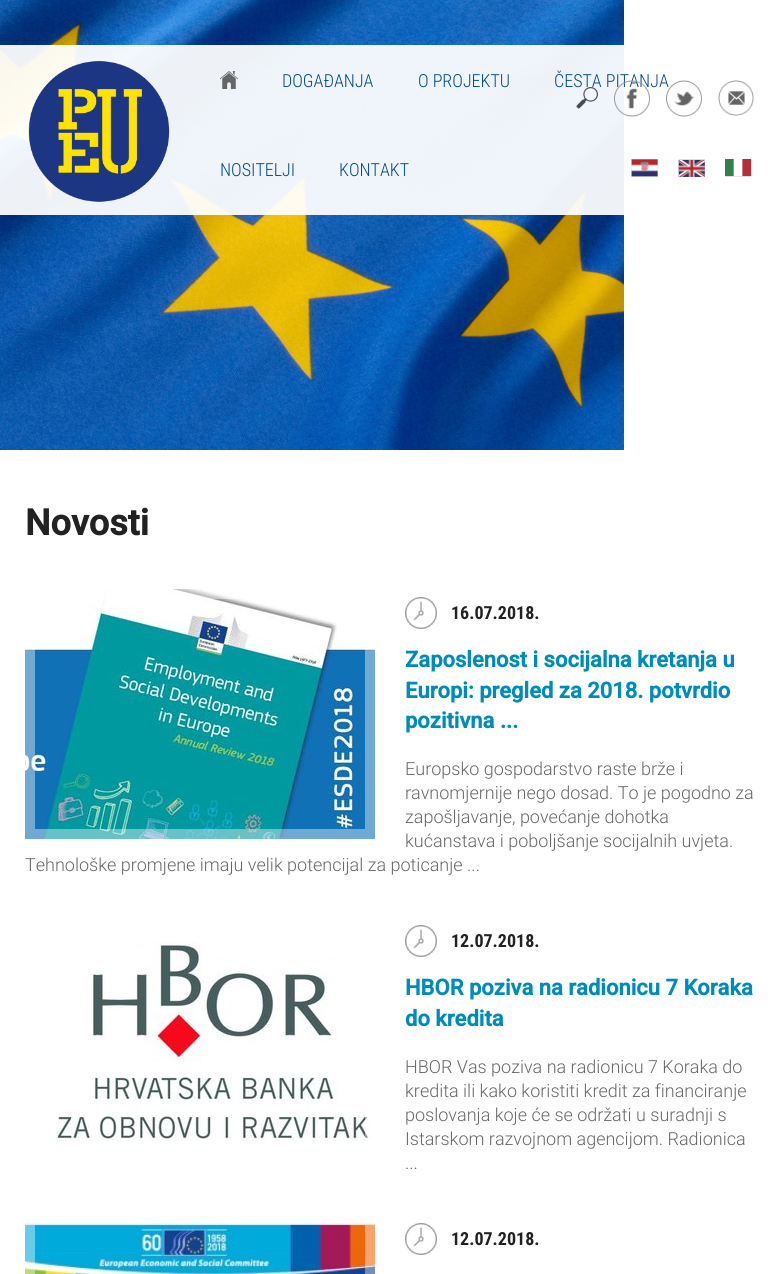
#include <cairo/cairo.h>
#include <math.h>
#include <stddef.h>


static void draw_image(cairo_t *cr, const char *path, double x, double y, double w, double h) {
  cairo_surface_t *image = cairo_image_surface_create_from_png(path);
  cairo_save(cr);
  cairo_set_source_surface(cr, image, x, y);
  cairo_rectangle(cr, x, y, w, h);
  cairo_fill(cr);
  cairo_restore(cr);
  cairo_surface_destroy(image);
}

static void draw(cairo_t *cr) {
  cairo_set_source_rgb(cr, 1, 1, 1);
  cairo_paint(cr);
  draw_image(cr, "images/1.png", 0, 0, 624, 450);
  cairo_set_source_rgba(cr, 1, 1, 1, 0.93);
  cairo_rectangle(cr, 0, 45, 624, 170);
  cairo_fill(cr);
  draw_image(cr, "images/2.png", 28, 60, 142, 142);
  draw_image(cr, "images/3.png", 220, 71, 18, 18);
  draw_image(cr, "images/7.png", 718, 80, 36, 36);
  draw_image(cr, "images/8.png", 631, 159, 27, 18);
  draw_image(cr, "images/9.png", 678, 159, 27, 18);
  draw_image(cr, "images/10.png", 725, 159, 27, 18);
  draw_image(cr, "images/11.png", 25, 589, 350, 250);
  cairo_rectangle(cr, 30, 594, 340, 240);
  cairo_set_source_rgba(cr, 1, 1, 1, 0.4);
  cairo_set_line_width(cr, 10);
  cairo_stroke(cr);
  draw_image(cr, "images/12.png", 405, 597, 32, 32);
  draw_image(cr, "images/13.png", 57, 941, 314, 200);
  cairo_rectangle(cr, 30, 922, 340, 240);
  cairo_stroke(cr);
  draw_image(cr, "images/12.png", 405, 925, 32, 32);
  draw_image(cr, "images/14.png", 25, 1215, 350, 59);
  cairo_rectangle(cr, 30, 1220, 340, 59);
  cairo_stroke(cr);
  draw_image(cr, "images/12.png", 405, 1223, 32, 32);
  cairo_select_font_face(cr, "Roboto Condensed Light", CAIRO_FONT_SLANT_NORMAL, CAIRO_FONT_WEIGHT_NORMAL);
  cairo_set_font_size(cr, 18);
  cairo_set_source_rgb(cr, 6 / 255.0, 74 / 255.0, 138 / 255.0);
  cairo_move_to(cr, 282, 87);
  cairo_show_text(cr, "DOGAĐANJA");
  cairo_move_to(cr, 418, 87);
  cairo_show_text(cr, "O PROJEKTU");
  cairo_move_to(cr, 554, 87);
  cairo_show_text(cr, "ČESTA PITANJA");
  cairo_move_to(cr, 220, 176);
  cairo_show_text(cr, "NOSITELJI");
  cairo_move_to(cr, 339, 176);
  cairo_show_text(cr, "KONTAKT");
  draw_image(cr, "images/4.png", 576, 87, 22, 22);
  draw_image(cr, "images/5.png", 614, 80, 36, 37);
  draw_image(cr, "images/6.png", 666, 80, 36, 37);
  cairo_select_font_face(cr, "Roboto", CAIRO_FONT_SLANT_NORMAL, CAIRO_FONT_WEIGHT_BOLD);
  cairo_set_font_size(cr, 36);
  cairo_set_source_rgb(cr, 34 / 255.0, 34 / 255.0, 34 / 255.0);
  cairo_move_to(cr, 25, 535);
  cairo_show_text(cr, "Novosti");
  cairo_select_font_face(cr, "Roboto Condensed", CAIRO_FONT_SLANT_NORMAL, CAIRO_FONT_WEIGHT_BOLD);
  cairo_set_font_size(cr, 18);
  cairo_move_to(cr, 451, 619);
  cairo_show_text(cr, "16.07.2018.");
  cairo_select_font_face(cr, "Roboto", CAIRO_FONT_SLANT_NORMAL, CAIRO_FONT_WEIGHT_BOLD);
  cairo_set_font_size(cr, 22);
  cairo_set_source_rgb(cr, 0, 140 / 255.0, 186 / 255.0);
  cairo_move_to(cr, 405, 667);
  cairo_show_text(cr, "Zaposlenost i socijalna kretanja u");
  cairo_move_to(cr, 405, 698);
  cairo_show_text(cr, "Europi: pregled za 2018. potvrdio");
  cairo_move_to(cr, 405, 728);
  cairo_show_text(cr, "pozitivna ...");
  cairo_select_font_face(cr, "Roboto Light", CAIRO_FONT_SLANT_NORMAL, CAIRO_FONT_WEIGHT_NORMAL);
  cairo_set_font_size(cr, 18);
  cairo_set_source_rgb(cr, 104 / 255.0, 104 / 255.0, 104 / 255.0);
  cairo_move_to(cr, 405, 775);
  cairo_show_text(cr, "Europsko gospodarstvo raste brže i");
  cairo_move_to(cr, 405, 799);
  cairo_show_text(cr, "ravnomjernije nego dosad. To je pogodno za");
  cairo_move_to(cr, 405, 823);
  cairo_show_text(cr, "zapošljavanje, povećanje dohotka");
  cairo_move_to(cr, 405, 847);
  cairo_show_text(cr, "kućanstava i poboljšanje socijalnih uvjeta.");
  cairo_move_to(cr, 25, 871);
  cairo_show_text(cr, "Tehnološke promjene imaju velik potencijal za poticanje ...");
  cairo_select_font_face(cr, "Roboto Condensed", CAIRO_FONT_SLANT_NORMAL, CAIRO_FONT_WEIGHT_BOLD);
  cairo_set_source_rgb(cr, 34 / 255.0, 34 / 255.0, 34 / 255.0);
  cairo_move_to(cr, 451, 947);
  cairo_show_text(cr, "12.07.2018.");
  cairo_select_font_face(cr, "Roboto", CAIRO_FONT_SLANT_NORMAL, CAIRO_FONT_WEIGHT_BOLD);
  cairo_set_font_size(cr, 22);
  cairo_set_source_rgb(cr, 0, 140 / 255.0, 186 / 255.0);
  cairo_move_to(cr, 405, 995);
  cairo_show_text(cr, "HBOR poziva na radionicu 7 Koraka");
  cairo_move_to(cr, 405, 1026);
  cairo_show_text(cr, "do kredita");
  cairo_select_font_face(cr, "Roboto Light", CAIRO_FONT_SLANT_NORMAL, CAIRO_FONT_WEIGHT_NORMAL);
  cairo_set_font_size(cr, 18);
  cairo_set_source_rgb(cr, 104 / 255.0, 104 / 255.0, 104 / 255.0);
  cairo_move_to(cr, 405, 1073);
  cairo_show_text(cr, "HBOR Vas poziva na radionicu 7 Koraka do");
  cairo_move_to(cr, 405, 1097);
  cairo_show_text(cr, "kredita ili kako koristiti kredit za financiranje");
  cairo_move_to(cr, 405, 1121);
  cairo_show_text(cr, "poslovanja koje će se održati u suradnji s");
  cairo_move_to(cr, 405, 1145);
  cairo_show_text(cr, "Istarskom razvojnom agencijom. Radionica");
  cairo_move_to(cr, 405, 1169);
  cairo_show_text(cr, "...");
  cairo_select_font_face(cr, "Roboto Condensed", CAIRO_FONT_SLANT_NORMAL, CAIRO_FONT_WEIGHT_BOLD);
  cairo_set_source_rgb(cr, 34 / 255.0, 34 / 255.0, 34 / 255.0);
  cairo_move_to(cr, 451, 1245);
  cairo_show_text(cr, "12.07.2018.");
}

int main(void) {
  cairo_surface_t *surface = cairo_image_surface_create(CAIRO_FORMAT_RGB24, 780, 1274);
  cairo_t *cr = cairo_create(surface);
  cairo_font_options_t *options = cairo_font_options_create();
  cairo_font_options_set_hint_metrics(options, CAIRO_HINT_METRICS_OFF);
  cairo_font_options_set_hint_style(options, CAIRO_HINT_STYLE_NONE);
  cairo_set_font_options(cr, options);
  cairo_set_miter_limit(cr, 4);
  draw(cr);
  cairo_surface_write_to_png(surface, "out.png");
  cairo_font_options_destroy(options);
  cairo_destroy(cr);
  cairo_surface_destroy(surface);
  return 0;
}
